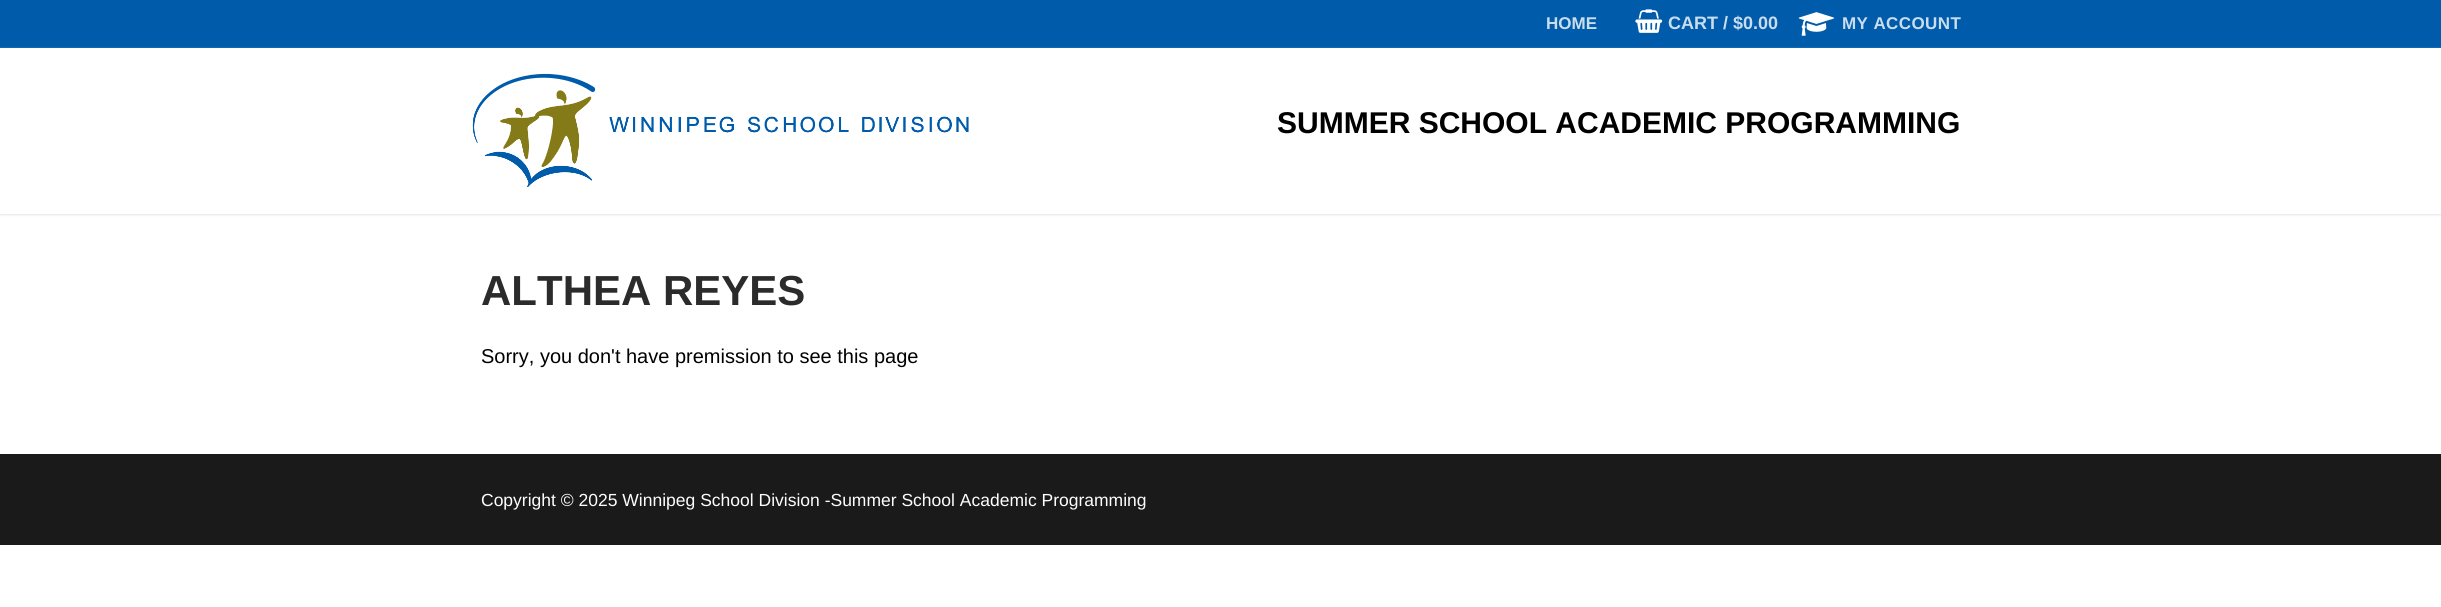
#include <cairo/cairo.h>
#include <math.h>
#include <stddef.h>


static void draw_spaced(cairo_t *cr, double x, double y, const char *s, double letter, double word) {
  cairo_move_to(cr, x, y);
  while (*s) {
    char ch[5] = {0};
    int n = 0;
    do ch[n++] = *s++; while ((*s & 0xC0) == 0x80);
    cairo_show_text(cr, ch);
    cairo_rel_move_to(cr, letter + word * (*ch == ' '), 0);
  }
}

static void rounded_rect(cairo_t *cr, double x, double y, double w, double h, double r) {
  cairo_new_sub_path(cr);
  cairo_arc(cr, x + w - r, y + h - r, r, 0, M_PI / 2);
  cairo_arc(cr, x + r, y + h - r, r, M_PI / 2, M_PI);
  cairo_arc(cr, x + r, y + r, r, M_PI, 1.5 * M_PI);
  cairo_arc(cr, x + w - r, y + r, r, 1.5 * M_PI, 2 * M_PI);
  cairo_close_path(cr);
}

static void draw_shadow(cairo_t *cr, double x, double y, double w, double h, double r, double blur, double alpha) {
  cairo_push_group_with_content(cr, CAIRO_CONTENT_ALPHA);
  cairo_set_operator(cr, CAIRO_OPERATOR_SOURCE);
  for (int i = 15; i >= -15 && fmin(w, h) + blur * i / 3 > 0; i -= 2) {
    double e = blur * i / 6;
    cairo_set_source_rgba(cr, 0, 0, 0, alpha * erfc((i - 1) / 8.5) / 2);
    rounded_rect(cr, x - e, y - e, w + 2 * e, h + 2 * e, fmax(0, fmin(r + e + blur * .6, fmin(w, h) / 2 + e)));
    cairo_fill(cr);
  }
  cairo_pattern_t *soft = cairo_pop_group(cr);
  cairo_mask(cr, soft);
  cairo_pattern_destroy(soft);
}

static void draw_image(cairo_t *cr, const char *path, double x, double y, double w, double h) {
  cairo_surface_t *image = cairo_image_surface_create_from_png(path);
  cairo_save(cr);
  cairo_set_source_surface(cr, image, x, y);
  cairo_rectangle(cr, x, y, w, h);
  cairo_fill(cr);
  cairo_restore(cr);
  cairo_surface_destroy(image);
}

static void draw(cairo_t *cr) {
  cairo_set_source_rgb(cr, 1, 1, 1);
  cairo_paint(cr);
  cairo_set_source_rgb(cr, 0, 92 / 255.0, 171 / 255.0);
  cairo_rectangle(cr, 0, 0, 2441, 48);
  cairo_fill(cr);
  draw_image(cr, "images/1.png", 1635, 9, 28, 24);
  draw_image(cr, "images/2.png", 1798, 12, 37, 24);
  cairo_set_source_rgb(cr, 225 / 255.0, 229 / 255.0, 234 / 255.0);
  draw_shadow(cr, 0, 49, 2441, 166, 0, 1, 1);
  cairo_set_source_rgb(cr, 1, 1, 1);
  cairo_rectangle(cr, 0, 48, 2441, 166);
  cairo_fill(cr);
  draw_image(cr, "images/3.png", 472, 73, 497, 114);
  cairo_set_source_rgb(cr, 26 / 255.0, 26 / 255.0, 26 / 255.0);
  cairo_rectangle(cr, 0, 454, 2441, 91);
  cairo_fill(cr);
  cairo_select_font_face(cr, "Liberation Sans", CAIRO_FONT_SLANT_NORMAL, CAIRO_FONT_WEIGHT_BOLD);
  cairo_set_font_size(cr, 17);
  cairo_set_source_rgb(cr, 201 / 255.0, 221 / 255.0, 237 / 255.0);
  cairo_move_to(cr, 1546, 29);
  cairo_show_text(cr, "HOME");
  cairo_set_font_size(cr, 18);
  cairo_move_to(cr, 1668, 29);
  cairo_show_text(cr, "CART / $0.00");
  cairo_set_font_size(cr, 17);
  draw_spaced(cr, 1842, 29, "MY ACCOUNT", 0.4, 0);
  cairo_set_font_size(cr, 30);
  cairo_set_source_rgb(cr, 0, 0, 0);
  cairo_move_to(cr, 1277, 133);
  cairo_show_text(cr, "SUMMER SCHOOL ACADEMIC PROGRAMMING");
  cairo_set_font_size(cr, 42);
  cairo_set_source_rgb(cr, 43 / 255.0, 43 / 255.0, 43 / 255.0);
  cairo_move_to(cr, 481, 305);
  cairo_show_text(cr, "ALTHEA REYES");
  cairo_select_font_face(cr, "Liberation Sans", CAIRO_FONT_SLANT_NORMAL, CAIRO_FONT_WEIGHT_NORMAL);
  cairo_set_font_size(cr, 20);
  cairo_set_source_rgb(cr, 0, 0, 0);
  cairo_move_to(cr, 481, 363);
  cairo_show_text(cr, "Sorry, you don't have premission to see this page");
  cairo_set_font_size(cr, 17.5);
  cairo_set_source_rgb(cr, 253 / 255.0, 253 / 255.0, 253 / 255.0);
  cairo_move_to(cr, 481, 506);
  cairo_show_text(cr, "Copyright © 2025 Winnipeg School Division -Summer School Academic Programming");
}

int main(void) {
  cairo_surface_t *surface = cairo_image_surface_create(CAIRO_FORMAT_RGB24, 2441, 607);
  cairo_t *cr = cairo_create(surface);
  cairo_font_options_t *options = cairo_font_options_create();
  cairo_font_options_set_hint_metrics(options, CAIRO_HINT_METRICS_OFF);
  cairo_font_options_set_hint_style(options, CAIRO_HINT_STYLE_NONE);
  cairo_set_font_options(cr, options);
  cairo_set_miter_limit(cr, 4);
  draw(cr);
  cairo_surface_write_to_png(surface, "out.png");
  cairo_font_options_destroy(options);
  cairo_destroy(cr);
  cairo_surface_destroy(surface);
  return 0;
}
